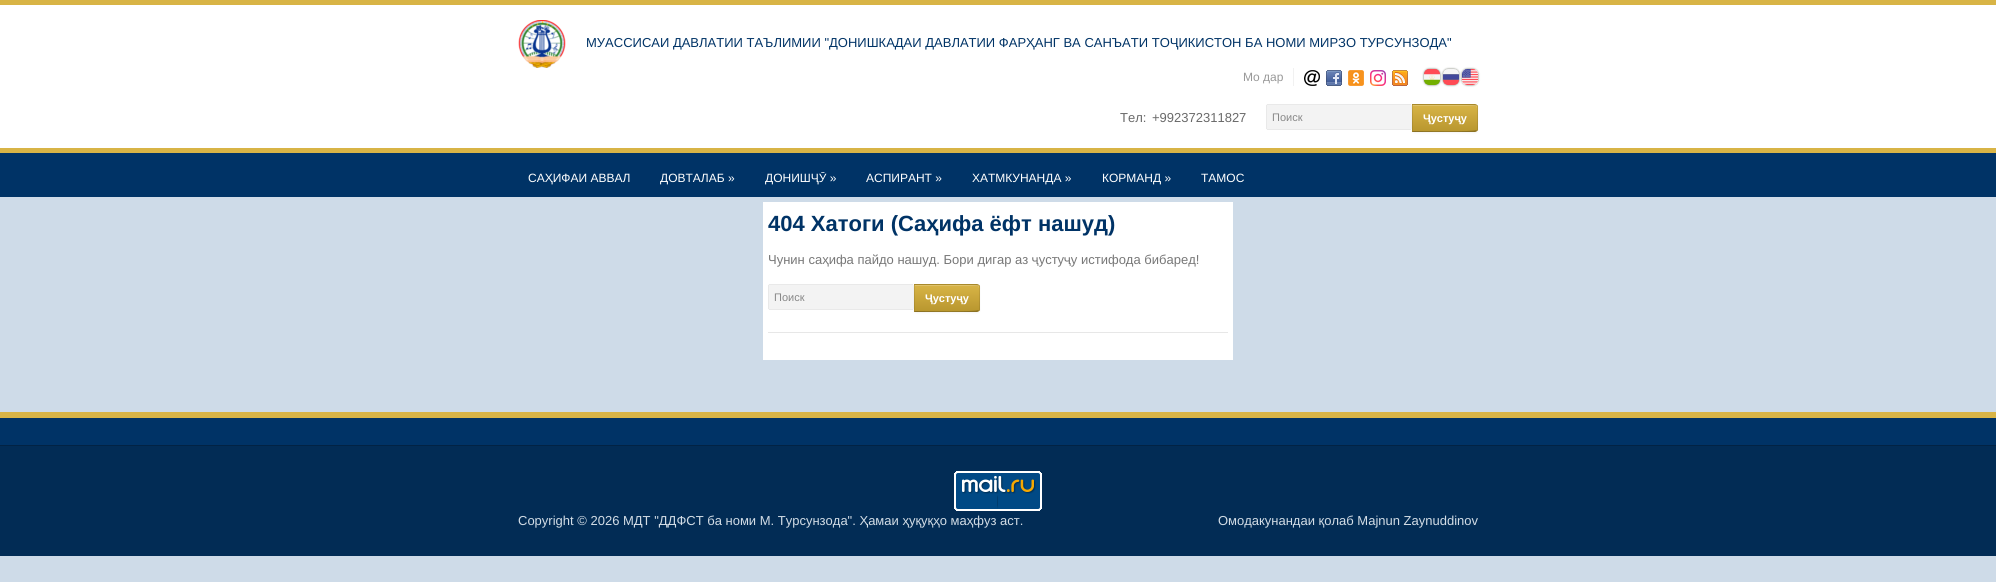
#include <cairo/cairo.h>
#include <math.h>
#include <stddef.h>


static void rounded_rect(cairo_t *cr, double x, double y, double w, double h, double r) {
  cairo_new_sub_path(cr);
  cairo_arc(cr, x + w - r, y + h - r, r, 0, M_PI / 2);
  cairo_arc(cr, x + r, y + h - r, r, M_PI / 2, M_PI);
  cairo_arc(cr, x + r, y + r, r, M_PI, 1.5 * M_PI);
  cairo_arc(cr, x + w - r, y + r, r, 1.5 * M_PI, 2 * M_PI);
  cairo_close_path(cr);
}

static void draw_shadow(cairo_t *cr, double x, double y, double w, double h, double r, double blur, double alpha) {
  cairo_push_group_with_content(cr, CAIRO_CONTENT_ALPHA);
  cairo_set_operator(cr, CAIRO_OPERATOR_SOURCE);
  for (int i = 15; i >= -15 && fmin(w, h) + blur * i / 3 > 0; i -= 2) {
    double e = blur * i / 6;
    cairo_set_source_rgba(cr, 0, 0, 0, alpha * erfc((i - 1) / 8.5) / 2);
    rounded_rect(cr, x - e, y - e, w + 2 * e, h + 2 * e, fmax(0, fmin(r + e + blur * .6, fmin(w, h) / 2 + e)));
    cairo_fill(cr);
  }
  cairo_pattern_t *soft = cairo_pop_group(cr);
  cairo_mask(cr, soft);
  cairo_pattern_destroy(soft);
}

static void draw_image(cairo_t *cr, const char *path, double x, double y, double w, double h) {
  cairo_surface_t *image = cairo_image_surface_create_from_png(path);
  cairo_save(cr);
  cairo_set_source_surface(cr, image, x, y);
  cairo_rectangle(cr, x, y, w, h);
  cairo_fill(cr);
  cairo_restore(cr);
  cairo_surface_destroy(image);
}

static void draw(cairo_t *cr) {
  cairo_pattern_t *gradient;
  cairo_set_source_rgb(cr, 206 / 255.0, 219 / 255.0, 232 / 255.0);
  cairo_paint(cr);
  cairo_set_source_rgb(cr, 1, 1, 1);
  cairo_rectangle(cr, 0, 5, 1996, 143);
  cairo_fill(cr);
  cairo_set_source_rgb(cr, 216 / 255.0, 180 / 255.0, 70 / 255.0);
  cairo_rectangle(cr, 0, 0, 1996, 5);
  cairo_fill(cr);
  draw_image(cr, "images/1.png", 518, 20, 48, 48);
  cairo_set_source_rgb(cr, 241 / 255.0, 241 / 255.0, 241 / 255.0);
  cairo_rectangle(cr, 1293, 68, 1, 18);
  cairo_fill(cr);
  draw_image(cr, "images/2.png", 1304, 70, 16, 16);
  draw_image(cr, "images/3.png", 1326, 70, 16, 16);
  draw_image(cr, "images/4.png", 1348, 70, 16, 16);
  draw_image(cr, "images/5.png", 1370, 70, 16, 16);
  draw_image(cr, "images/6.png", 1392, 70, 16, 16);
  cairo_set_source_rgb(cr, 114 / 255.0, 119 / 255.0, 105 / 255.0);
  draw_shadow(cr, 1424, 69, 16, 16, 5, 1, 1);
  draw_image(cr, "images/7.png", 1424, 69, 16, 16);
  draw_shadow(cr, 1443, 69, 16, 16, 5, 1, 1);
  draw_image(cr, "images/8.png", 1443, 69, 16, 16);
  cairo_save(cr);
  cairo_set_fill_rule(cr, CAIRO_FILL_RULE_EVEN_ODD);
  cairo_new_path(cr);
  cairo_move_to(cr, 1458, 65);
  cairo_line_to(cr, 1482, 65);
  cairo_line_to(cr, 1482, 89);
  cairo_line_to(cr, 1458, 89);
  cairo_close_path(cr);
  cairo_move_to(cr, 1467, 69);
  cairo_line_to(cr, 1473, 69);
  cairo_curve_to(cr, 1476, 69, 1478, 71, 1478, 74);
  cairo_line_to(cr, 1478, 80);
  cairo_curve_to(cr, 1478, 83, 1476, 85, 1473, 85);
  cairo_line_to(cr, 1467, 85);
  cairo_curve_to(cr, 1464, 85, 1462, 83, 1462, 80);
  cairo_line_to(cr, 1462, 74);
  cairo_curve_to(cr, 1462, 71, 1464, 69, 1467, 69);
  cairo_close_path(cr);
  cairo_clip(cr);
  draw_shadow(cr, 1462, 69, 16, 16, 5, 1, 1);
  cairo_restore(cr);
  draw_image(cr, "images/9.png", 1462, 69, 16, 16);
  cairo_set_source_rgb(cr, 243 / 255.0, 243 / 255.0, 243 / 255.0);
  rounded_rect(cr, 1266, 104, 146, 26, 2);
  cairo_fill(cr);
  cairo_set_source_rgb(cr, 233 / 255.0, 233 / 255.0, 233 / 255.0);
  cairo_rectangle(cr, 1267, 104, 144, 1);
  cairo_fill(cr);
  cairo_rectangle(cr, 1267, 129, 144, 1);
  cairo_fill(cr);
  cairo_rectangle(cr, 1266, 105, 1, 24);
  cairo_fill(cr);
  cairo_set_source_rgb(cr, 0, 0, 0);
  draw_shadow(cr, 1412, 105, 66, 28, 3, 1, 0.05);
  cairo_set_source_rgb(cr, 185 / 255.0, 151 / 255.0, 47 / 255.0);
  cairo_new_path(cr);
  cairo_move_to(cr, 1412, 104);
  cairo_line_to(cr, 1475, 104);
  cairo_curve_to(cr, 1476.5, 104, 1478, 105.5, 1478, 107);
  cairo_line_to(cr, 1478, 129);
  cairo_curve_to(cr, 1478, 130.5, 1476.5, 132, 1475, 132);
  cairo_line_to(cr, 1412, 132);
  cairo_close_path(cr);
  cairo_fill(cr);
  cairo_save(cr);
  cairo_new_path(cr);
  cairo_move_to(cr, 1412, 104);
  cairo_line_to(cr, 1475, 104);
  cairo_curve_to(cr, 1476.5, 104, 1478, 105.5, 1478, 107);
  cairo_line_to(cr, 1478, 129);
  cairo_curve_to(cr, 1478, 130.5, 1476.5, 132, 1475, 132);
  cairo_line_to(cr, 1412, 132);
  cairo_close_path(cr);
  cairo_clip(cr);
  gradient = cairo_pattern_create_linear(1445, 105, 1445, 131);
  cairo_pattern_add_color_stop_rgba(gradient, 0, 216 / 255.0, 180 / 255.0, 70 / 255.0, 1);
  cairo_pattern_add_color_stop_rgba(gradient, 1, 185 / 255.0, 151 / 255.0, 47 / 255.0, 1);
  cairo_set_source(cr, gradient);
  cairo_pattern_destroy(gradient);
  cairo_rectangle(cr, 1412, 105, 66, 26);
  cairo_fill(cr);
  cairo_restore(cr);
  cairo_set_source_rgb(cr, 223 / 255.0, 194 / 255.0, 107 / 255.0);
  cairo_new_path(cr);
  cairo_move_to(cr, 1413, 106);
  cairo_line_to(cr, 1476, 106);
  cairo_line_to(cr, 1477, 108);
  cairo_line_to(cr, 1477, 107);
  cairo_curve_to(cr, 1477, 106, 1476, 105, 1475, 105);
  cairo_line_to(cr, 1413, 105);
  cairo_close_path(cr);
  cairo_fill(cr);
  cairo_set_source_rgba(cr, 0, 0, 0, 0.1);
  cairo_new_path(cr);
  cairo_move_to(cr, 1412, 104);
  cairo_line_to(cr, 1413, 105);
  cairo_curve_to(cr, 1420, 105, 1475, 104, 1476, 106);
  cairo_line_to(cr, 1477, 105);
  cairo_line_to(cr, 1475, 104);
  cairo_close_path(cr);
  cairo_fill(cr);
  cairo_new_path(cr);
  cairo_move_to(cr, 1478, 129);
  cairo_line_to(cr, 1478, 107);
  cairo_curve_to(cr, 1478, 106, 1478, 105, 1477, 105);
  cairo_line_to(cr, 1476.5, 105.5);
  cairo_curve_to(cr, 1477, 106, 1477, 106.5, 1477, 107);
  cairo_line_to(cr, 1477, 129);
  cairo_curve_to(cr, 1477, 129.5, 1477, 130, 1476.5, 130.5);
  cairo_line_to(cr, 1477, 131);
  cairo_curve_to(cr, 1478, 131, 1478, 130, 1478, 129);
  cairo_close_path(cr);
  cairo_fill(cr);
  cairo_set_source_rgba(cr, 0, 0, 0, 0.25);
  cairo_new_path(cr);
  cairo_move_to(cr, 1475, 132);
  cairo_line_to(cr, 1477, 131);
  cairo_line_to(cr, 1476, 130);
  cairo_curve_to(cr, 1475, 132, 1420, 131, 1413, 131);
  cairo_line_to(cr, 1412, 132);
  cairo_close_path(cr);
  cairo_fill(cr);
  cairo_set_source_rgba(cr, 0, 0, 0, 0.1);
  cairo_new_path(cr);
  cairo_move_to(cr, 1412, 104);
  cairo_line_to(cr, 1412, 132);
  cairo_line_to(cr, 1413, 131);
  cairo_line_to(cr, 1413, 105);
  cairo_close_path(cr);
  cairo_fill(cr);
  cairo_set_source_rgb(cr, 0, 51 / 255.0, 102 / 255.0);
  cairo_rectangle(cr, 0, 153, 1996, 44);
  cairo_fill(cr);
  cairo_set_source_rgb(cr, 216 / 255.0, 180 / 255.0, 70 / 255.0);
  cairo_rectangle(cr, 0, 148, 1996, 5);
  cairo_fill(cr);
  cairo_set_source_rgb(cr, 1, 1, 1);
  cairo_rectangle(cr, 763, 202, 470, 158);
  cairo_fill(cr);
  cairo_set_source_rgb(cr, 243 / 255.0, 243 / 255.0, 243 / 255.0);
  rounded_rect(cr, 768, 284, 146, 26, 2);
  cairo_fill(cr);
  cairo_set_source_rgb(cr, 233 / 255.0, 233 / 255.0, 233 / 255.0);
  cairo_rectangle(cr, 769, 284, 144, 1);
  cairo_fill(cr);
  cairo_rectangle(cr, 769, 309, 144, 1);
  cairo_fill(cr);
  cairo_rectangle(cr, 768, 285, 1, 24);
  cairo_fill(cr);
  cairo_set_source_rgb(cr, 0, 0, 0);
  draw_shadow(cr, 914, 285, 66, 28, 3, 1, 0.05);
  cairo_set_source_rgb(cr, 185 / 255.0, 151 / 255.0, 47 / 255.0);
  cairo_new_path(cr);
  cairo_move_to(cr, 914, 284);
  cairo_line_to(cr, 977, 284);
  cairo_curve_to(cr, 978.5, 284, 980, 285.5, 980, 287);
  cairo_line_to(cr, 980, 309);
  cairo_curve_to(cr, 980, 310.5, 978.5, 312, 977, 312);
  cairo_line_to(cr, 914, 312);
  cairo_close_path(cr);
  cairo_fill(cr);
  cairo_save(cr);
  cairo_new_path(cr);
  cairo_move_to(cr, 914, 284);
  cairo_line_to(cr, 977, 284);
  cairo_curve_to(cr, 978.5, 284, 980, 285.5, 980, 287);
  cairo_line_to(cr, 980, 309);
  cairo_curve_to(cr, 980, 310.5, 978.5, 312, 977, 312);
  cairo_line_to(cr, 914, 312);
  cairo_close_path(cr);
  cairo_clip(cr);
  gradient = cairo_pattern_create_linear(947, 285, 947, 311);
  cairo_pattern_add_color_stop_rgba(gradient, 0, 216 / 255.0, 180 / 255.0, 70 / 255.0, 1);
  cairo_pattern_add_color_stop_rgba(gradient, 1, 185 / 255.0, 151 / 255.0, 47 / 255.0, 1);
  cairo_set_source(cr, gradient);
  cairo_pattern_destroy(gradient);
  cairo_rectangle(cr, 914, 285, 66, 26);
  cairo_fill(cr);
  cairo_restore(cr);
  cairo_set_source_rgb(cr, 223 / 255.0, 194 / 255.0, 107 / 255.0);
  cairo_new_path(cr);
  cairo_move_to(cr, 915, 286);
  cairo_line_to(cr, 978, 286);
  cairo_line_to(cr, 979, 288);
  cairo_line_to(cr, 979, 287);
  cairo_curve_to(cr, 979, 286, 978, 285, 977, 285);
  cairo_line_to(cr, 915, 285);
  cairo_close_path(cr);
  cairo_fill(cr);
  cairo_set_source_rgba(cr, 0, 0, 0, 0.1);
  cairo_new_path(cr);
  cairo_move_to(cr, 914, 284);
  cairo_line_to(cr, 915, 285);
  cairo_curve_to(cr, 922, 285, 977, 284, 978, 286);
  cairo_line_to(cr, 979, 285);
  cairo_line_to(cr, 977, 284);
  cairo_close_path(cr);
  cairo_fill(cr);
  cairo_new_path(cr);
  cairo_move_to(cr, 980, 309);
  cairo_line_to(cr, 980, 287);
  cairo_curve_to(cr, 980, 286, 980, 285, 979, 285);
  cairo_line_to(cr, 978.5, 285.5);
  cairo_curve_to(cr, 979, 286, 979, 286.5, 979, 287);
  cairo_line_to(cr, 979, 309);
  cairo_curve_to(cr, 979, 309.5, 979, 310, 978.5, 310.5);
  cairo_line_to(cr, 979, 311);
  cairo_curve_to(cr, 980, 311, 980, 310, 980, 309);
  cairo_close_path(cr);
  cairo_fill(cr);
  cairo_set_source_rgba(cr, 0, 0, 0, 0.25);
  cairo_new_path(cr);
  cairo_move_to(cr, 977, 312);
  cairo_line_to(cr, 979, 311);
  cairo_line_to(cr, 978, 310);
  cairo_curve_to(cr, 977, 312, 922, 311, 915, 311);
  cairo_line_to(cr, 914, 312);
  cairo_close_path(cr);
  cairo_fill(cr);
  cairo_set_source_rgba(cr, 0, 0, 0, 0.1);
  cairo_new_path(cr);
  cairo_move_to(cr, 914, 284);
  cairo_line_to(cr, 914, 312);
  cairo_line_to(cr, 915, 311);
  cairo_line_to(cr, 915, 285);
  cairo_close_path(cr);
  cairo_fill(cr);
  cairo_set_source_rgb(cr, 231 / 255.0, 231 / 255.0, 231 / 255.0);
  cairo_rectangle(cr, 768, 332, 460, 1);
  cairo_fill(cr);
  cairo_set_source_rgb(cr, 0, 51 / 255.0, 102 / 255.0);
  cairo_rectangle(cr, 0, 418, 1996, 27);
  cairo_fill(cr);
  cairo_set_source_rgb(cr, 216 / 255.0, 180 / 255.0, 70 / 255.0);
  cairo_rectangle(cr, 0, 412, 1996, 6);
  cairo_fill(cr);
  cairo_set_source_rgb(cr, 2 / 255.0, 44 / 255.0, 85 / 255.0);
  cairo_rectangle(cr, 0, 446, 1996, 110);
  cairo_fill(cr);
  cairo_set_source_rgb(cr, 2 / 255.0, 35 / 255.0, 68 / 255.0);
  cairo_rectangle(cr, 0, 445, 1996, 1);
  cairo_fill(cr);
  draw_image(cr, "images/10.png", 954, 471, 88, 40);
  cairo_select_font_face(cr, "Liberation Sans", CAIRO_FONT_SLANT_NORMAL, CAIRO_FONT_WEIGHT_NORMAL);
  cairo_set_font_size(cr, 13);
  cairo_set_source_rgb(cr, 0, 51 / 255.0, 102 / 255.0);
  cairo_move_to(cr, 586, 47);
  cairo_show_text(cr, "МУАССИСАИ ДАВЛАТИИ ТАЪЛИМИИ \"ДОНИШКАДАИ ДАВЛАТИИ ФАРҲАНГ ВА САНЪАТИ ТОҶИКИСТОН БА НОМИ МИРЗО ТУРСУНЗОДА\"");
  cairo_set_font_size(cr, 12);
  cairo_set_source_rgb(cr, 153 / 255.0, 153 / 255.0, 153 / 255.0);
  cairo_move_to(cr, 1243, 81);
  cairo_show_text(cr, "Мо дар");
  cairo_set_font_size(cr, 13);
  cairo_set_source_rgb(cr, 105 / 255.0, 105 / 255.0, 105 / 255.0);
  cairo_move_to(cr, 1120, 122);
  cairo_show_text(cr, "Тел:");
  cairo_move_to(cr, 1152, 122);
  cairo_show_text(cr, "+992372311827");
  cairo_set_font_size(cr, 11);
  cairo_set_source_rgb(cr, 136 / 255.0, 136 / 255.0, 136 / 255.0);
  cairo_move_to(cr, 1272, 121);
  cairo_show_text(cr, "Поиск");
  cairo_select_font_face(cr, "Liberation Sans", CAIRO_FONT_SLANT_NORMAL, CAIRO_FONT_WEIGHT_BOLD);
  cairo_set_source_rgb(cr, 1, 1, 1);
  cairo_move_to(cr, 1423, 122);
  cairo_show_text(cr, "Ҷустуҷу");
  cairo_select_font_face(cr, "Liberation Sans", CAIRO_FONT_SLANT_NORMAL, CAIRO_FONT_WEIGHT_NORMAL);
  cairo_set_font_size(cr, 12);
  cairo_move_to(cr, 528, 182);
  cairo_show_text(cr, "САҲИФАИ АВВАЛ");
  cairo_move_to(cr, 660, 182);
  cairo_show_text(cr, "ДОВТАЛАБ »");
  cairo_move_to(cr, 765, 182);
  cairo_show_text(cr, "ДОНИШҶӮ »");
  cairo_move_to(cr, 866, 182);
  cairo_show_text(cr, "АСПИРАНТ »");
  cairo_move_to(cr, 972, 182);
  cairo_show_text(cr, "ХАТМКУНАНДА »");
  cairo_move_to(cr, 1102, 182);
  cairo_show_text(cr, "КОРМАНД »");
  cairo_move_to(cr, 1201, 182);
  cairo_show_text(cr, "ТАМОС");
  cairo_select_font_face(cr, "Liberation Sans", CAIRO_FONT_SLANT_NORMAL, CAIRO_FONT_WEIGHT_BOLD);
  cairo_set_font_size(cr, 22);
  cairo_set_source_rgb(cr, 0, 51 / 255.0, 102 / 255.0);
  cairo_move_to(cr, 768, 231);
  cairo_show_text(cr, "404 Хатоги (Саҳифа ёфт нашуд)");
  cairo_select_font_face(cr, "Liberation Sans", CAIRO_FONT_SLANT_NORMAL, CAIRO_FONT_WEIGHT_NORMAL);
  cairo_set_font_size(cr, 13);
  cairo_set_source_rgb(cr, 119 / 255.0, 119 / 255.0, 119 / 255.0);
  cairo_move_to(cr, 768, 264);
  cairo_show_text(cr, "Чунин саҳифа пайдо нашуд. Бори дигар аз ҷустуҷу истифода бибаред!");
  cairo_set_font_size(cr, 11);
  cairo_set_source_rgb(cr, 136 / 255.0, 136 / 255.0, 136 / 255.0);
  cairo_move_to(cr, 774, 301);
  cairo_show_text(cr, "Поиск");
  cairo_select_font_face(cr, "Liberation Sans", CAIRO_FONT_SLANT_NORMAL, CAIRO_FONT_WEIGHT_BOLD);
  cairo_set_source_rgb(cr, 1, 1, 1);
  cairo_move_to(cr, 925, 302);
  cairo_show_text(cr, "Ҷустуҷу");
  cairo_select_font_face(cr, "Liberation Sans", CAIRO_FONT_SLANT_NORMAL, CAIRO_FONT_WEIGHT_NORMAL);
  cairo_set_font_size(cr, 13);
  cairo_set_source_rgb(cr, 211 / 255.0, 221 / 255.0, 230 / 255.0);
  cairo_move_to(cr, 518, 525);
  cairo_show_text(cr, "Copyright © 2026 МДТ \"ДДФСТ ба номи М. Турсунзода\". Ҳамаи ҳуқуқҳо маҳфуз аст.");
  cairo_move_to(cr, 1218, 525);
  cairo_show_text(cr, "Омодакунандаи қолаб Majnun Zaynuddinov");
}

int main(void) {
  cairo_surface_t *surface = cairo_image_surface_create(CAIRO_FORMAT_RGB24, 1996, 582);
  cairo_t *cr = cairo_create(surface);
  cairo_font_options_t *options = cairo_font_options_create();
  cairo_font_options_set_hint_metrics(options, CAIRO_HINT_METRICS_OFF);
  cairo_font_options_set_hint_style(options, CAIRO_HINT_STYLE_NONE);
  cairo_set_font_options(cr, options);
  cairo_set_miter_limit(cr, 4);
  draw(cr);
  cairo_surface_write_to_png(surface, "out.png");
  cairo_font_options_destroy(options);
  cairo_destroy(cr);
  cairo_surface_destroy(surface);
  return 0;
}
